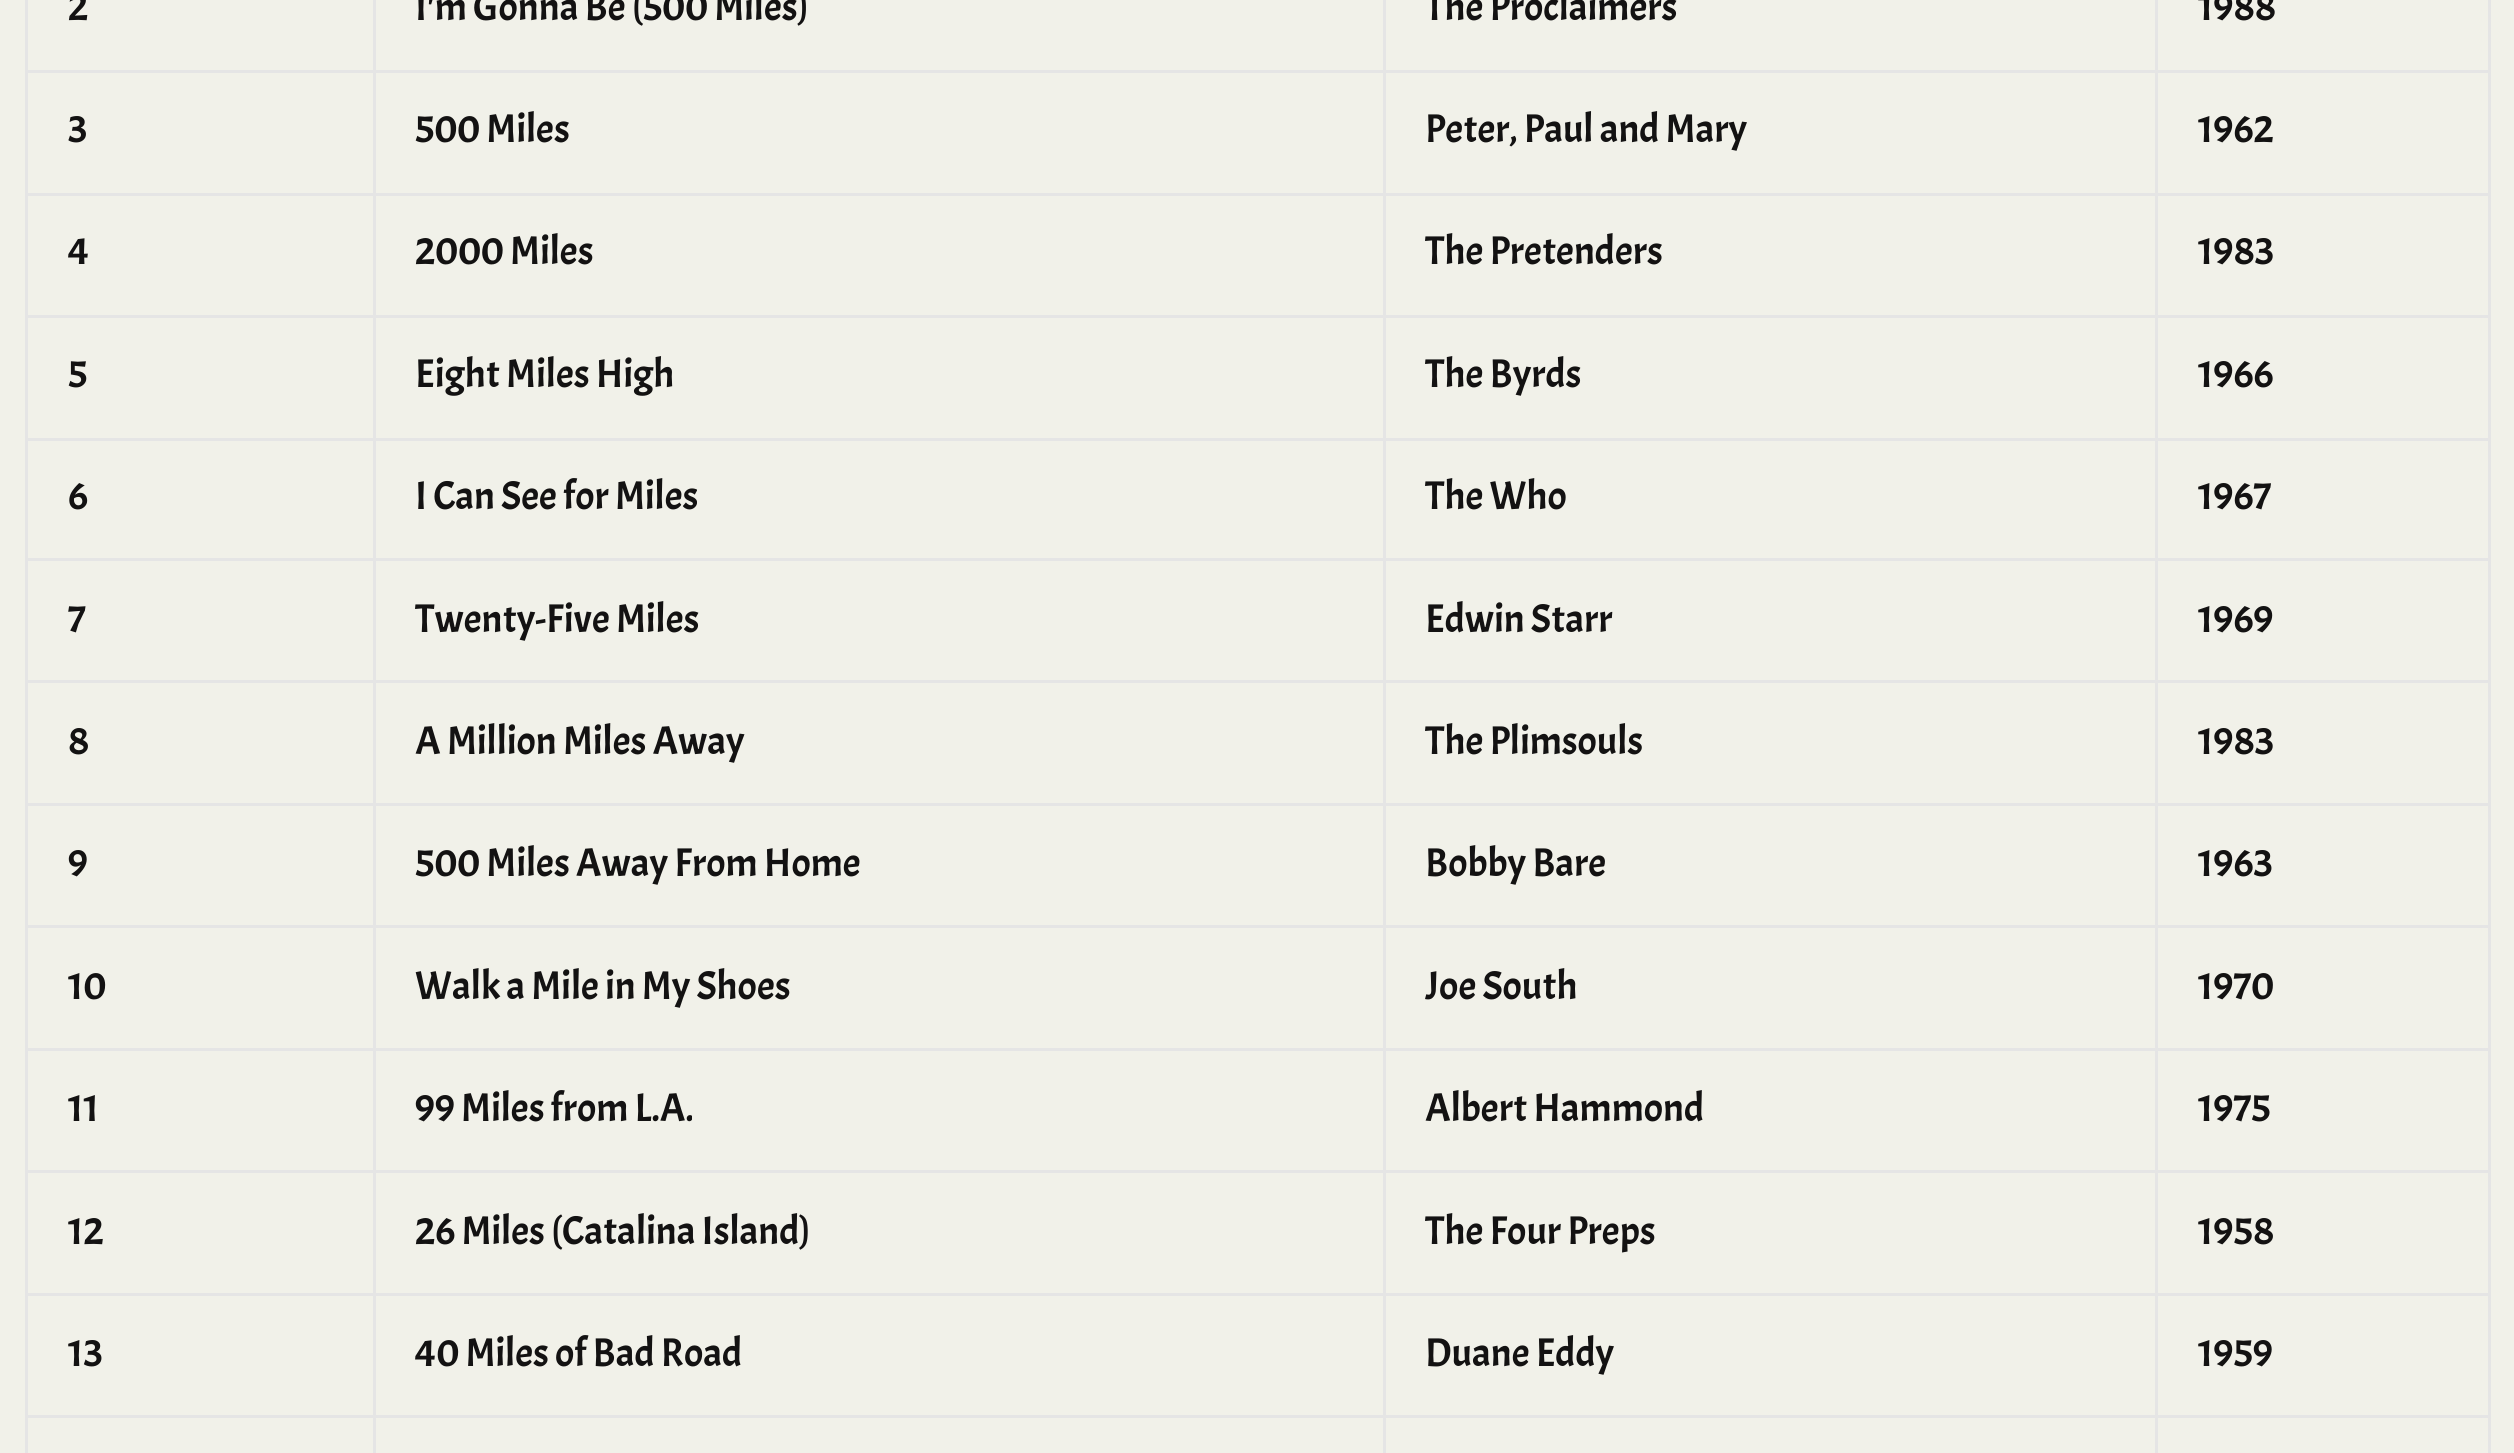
#include <cairo/cairo.h>
#include <math.h>
#include <stddef.h>


static void draw(cairo_t *cr) {
  cairo_set_source_rgb(cr, 241 / 255.0, 241 / 255.0, 233 / 255.0);
  cairo_paint(cr);
  cairo_set_source_rgb(cr, 229 / 255.0, 229 / 255.0, 229 / 255.0);
  cairo_rectangle(cr, 25, 0, 3, 1453);
  cairo_fill(cr);
  cairo_rectangle(cr, 373, 0, 3, 195);
  cairo_fill(cr);
  cairo_rectangle(cr, 28, 70, 347, 3);
  cairo_fill(cr);
  cairo_rectangle(cr, 1383, 0, 3, 195);
  cairo_fill(cr);
  cairo_rectangle(cr, 375, 70, 1010, 3);
  cairo_fill(cr);
  cairo_rectangle(cr, 2155, 0, 3, 195);
  cairo_fill(cr);
  cairo_rectangle(cr, 1385, 70, 773, 3);
  cairo_fill(cr);
  cairo_rectangle(cr, 2488, 0, 3, 195);
  cairo_fill(cr);
  cairo_rectangle(cr, 2158, 70, 332, 3);
  cairo_fill(cr);
  cairo_rectangle(cr, 28, 193, 2462, 3);
  cairo_fill(cr);
  cairo_rectangle(cr, 373, 195, 3, 245);
  cairo_fill(cr);
  cairo_rectangle(cr, 28, 315, 347, 3);
  cairo_fill(cr);
  cairo_rectangle(cr, 1383, 195, 3, 245);
  cairo_fill(cr);
  cairo_rectangle(cr, 375, 315, 1010, 3);
  cairo_fill(cr);
  cairo_rectangle(cr, 2155, 195, 3, 245);
  cairo_fill(cr);
  cairo_rectangle(cr, 1385, 315, 773, 3);
  cairo_fill(cr);
  cairo_rectangle(cr, 2488, 195, 3, 245);
  cairo_fill(cr);
  cairo_rectangle(cr, 2158, 315, 332, 3);
  cairo_fill(cr);
  cairo_rectangle(cr, 28, 438, 2462, 3);
  cairo_fill(cr);
  cairo_rectangle(cr, 373, 440, 3, 120);
  cairo_fill(cr);
  cairo_rectangle(cr, 28, 558, 347, 3);
  cairo_fill(cr);
  cairo_rectangle(cr, 1383, 440, 3, 120);
  cairo_fill(cr);
  cairo_rectangle(cr, 375, 558, 1010, 3);
  cairo_fill(cr);
  cairo_rectangle(cr, 2155, 440, 3, 120);
  cairo_fill(cr);
  cairo_rectangle(cr, 1385, 558, 773, 3);
  cairo_fill(cr);
  cairo_rectangle(cr, 2488, 440, 3, 120);
  cairo_fill(cr);
  cairo_rectangle(cr, 2158, 558, 332, 3);
  cairo_fill(cr);
  cairo_rectangle(cr, 373, 560, 3, 245);
  cairo_fill(cr);
  cairo_rectangle(cr, 28, 680, 347, 3);
  cairo_fill(cr);
  cairo_rectangle(cr, 1383, 560, 3, 245);
  cairo_fill(cr);
  cairo_rectangle(cr, 375, 680, 1010, 3);
  cairo_fill(cr);
  cairo_rectangle(cr, 2155, 560, 3, 245);
  cairo_fill(cr);
  cairo_rectangle(cr, 1385, 680, 773, 3);
  cairo_fill(cr);
  cairo_rectangle(cr, 2488, 560, 3, 245);
  cairo_fill(cr);
  cairo_rectangle(cr, 2158, 680, 332, 3);
  cairo_fill(cr);
  cairo_rectangle(cr, 28, 803, 2462, 3);
  cairo_fill(cr);
  cairo_rectangle(cr, 373, 805, 3, 245);
  cairo_fill(cr);
  cairo_rectangle(cr, 28, 925, 347, 3);
  cairo_fill(cr);
  cairo_rectangle(cr, 1383, 805, 3, 245);
  cairo_fill(cr);
  cairo_rectangle(cr, 375, 925, 1010, 3);
  cairo_fill(cr);
  cairo_rectangle(cr, 2155, 805, 3, 245);
  cairo_fill(cr);
  cairo_rectangle(cr, 1385, 925, 773, 3);
  cairo_fill(cr);
  cairo_rectangle(cr, 2488, 805, 3, 245);
  cairo_fill(cr);
  cairo_rectangle(cr, 2158, 925, 332, 3);
  cairo_fill(cr);
  cairo_rectangle(cr, 28, 1048, 2462, 3);
  cairo_fill(cr);
  cairo_rectangle(cr, 373, 1050, 3, 245);
  cairo_fill(cr);
  cairo_rectangle(cr, 28, 1170, 347, 3);
  cairo_fill(cr);
  cairo_rectangle(cr, 1383, 1050, 3, 245);
  cairo_fill(cr);
  cairo_rectangle(cr, 375, 1170, 1010, 3);
  cairo_fill(cr);
  cairo_rectangle(cr, 2155, 1050, 3, 245);
  cairo_fill(cr);
  cairo_rectangle(cr, 1385, 1170, 773, 3);
  cairo_fill(cr);
  cairo_rectangle(cr, 2488, 1050, 3, 245);
  cairo_fill(cr);
  cairo_rectangle(cr, 2158, 1170, 332, 3);
  cairo_fill(cr);
  cairo_rectangle(cr, 28, 1293, 2462, 3);
  cairo_fill(cr);
  cairo_rectangle(cr, 373, 1295, 3, 158);
  cairo_fill(cr);
  cairo_rectangle(cr, 28, 1415, 347, 3);
  cairo_fill(cr);
  cairo_rectangle(cr, 1383, 1295, 3, 158);
  cairo_fill(cr);
  cairo_rectangle(cr, 375, 1415, 1010, 3);
  cairo_fill(cr);
  cairo_rectangle(cr, 2155, 1295, 3, 158);
  cairo_fill(cr);
  cairo_rectangle(cr, 1385, 1415, 773, 3);
  cairo_fill(cr);
  cairo_rectangle(cr, 2488, 1295, 3, 158);
  cairo_fill(cr);
  cairo_rectangle(cr, 2158, 1415, 332, 3);
  cairo_fill(cr);
  cairo_select_font_face(cr, "Acme", CAIRO_FONT_SLANT_NORMAL, CAIRO_FONT_WEIGHT_NORMAL);
  cairo_set_font_size(cr, 40);
  cairo_set_source_rgb(cr, 19 / 255.0, 18 / 255.0, 18 / 255.0);
  cairo_move_to(cr, 68, 20);
  cairo_show_text(cr, "2");
  cairo_move_to(cr, 415, 20);
  cairo_show_text(cr, "I'm Gonna Be (500 Miles)");
  cairo_move_to(cr, 1425, 20);
  cairo_show_text(cr, "The Proclaimers");
  cairo_move_to(cr, 2198, 20);
  cairo_show_text(cr, "1988");
  cairo_move_to(cr, 68, 142);
  cairo_show_text(cr, "3");
  cairo_move_to(cr, 415, 142);
  cairo_show_text(cr, "500 Miles");
  cairo_move_to(cr, 1425, 142);
  cairo_show_text(cr, "Peter, Paul and Mary");
  cairo_move_to(cr, 2198, 142);
  cairo_show_text(cr, "1962");
  cairo_move_to(cr, 68, 264);
  cairo_show_text(cr, "4");
  cairo_move_to(cr, 415, 264);
  cairo_show_text(cr, "2000 Miles");
  cairo_move_to(cr, 1425, 264);
  cairo_show_text(cr, "The Pretenders");
  cairo_move_to(cr, 2198, 264);
  cairo_show_text(cr, "1983");
  cairo_move_to(cr, 68, 387);
  cairo_show_text(cr, "5");
  cairo_move_to(cr, 415, 387);
  cairo_show_text(cr, "Eight Miles High");
  cairo_move_to(cr, 1425, 387);
  cairo_show_text(cr, "The Byrds");
  cairo_move_to(cr, 2198, 387);
  cairo_show_text(cr, "1966");
  cairo_move_to(cr, 68, 509);
  cairo_show_text(cr, "6");
  cairo_move_to(cr, 415, 509);
  cairo_show_text(cr, "I Can See for Miles");
  cairo_move_to(cr, 1425, 509);
  cairo_show_text(cr, "The Who");
  cairo_move_to(cr, 2198, 509);
  cairo_show_text(cr, "1967");
  cairo_move_to(cr, 68, 632);
  cairo_show_text(cr, "7");
  cairo_move_to(cr, 415, 632);
  cairo_show_text(cr, "Twenty-Five Miles");
  cairo_move_to(cr, 1425, 632);
  cairo_show_text(cr, "Edwin Starr");
  cairo_move_to(cr, 2198, 632);
  cairo_show_text(cr, "1969");
  cairo_move_to(cr, 68, 754);
  cairo_show_text(cr, "8");
  cairo_move_to(cr, 415, 754);
  cairo_show_text(cr, "A Million Miles Away");
  cairo_move_to(cr, 1425, 754);
  cairo_show_text(cr, "The Plimsouls");
  cairo_move_to(cr, 2198, 754);
  cairo_show_text(cr, "1983");
  cairo_move_to(cr, 68, 876);
  cairo_show_text(cr, "9");
  cairo_move_to(cr, 415, 876);
  cairo_show_text(cr, "500 Miles Away From Home");
  cairo_move_to(cr, 1425, 876);
  cairo_show_text(cr, "Bobby Bare");
  cairo_move_to(cr, 2198, 876);
  cairo_show_text(cr, "1963");
  cairo_move_to(cr, 68, 999);
  cairo_show_text(cr, "10");
  cairo_move_to(cr, 415, 999);
  cairo_show_text(cr, "Walk a Mile in My Shoes");
  cairo_move_to(cr, 1425, 999);
  cairo_show_text(cr, "Joe South");
  cairo_move_to(cr, 2198, 999);
  cairo_show_text(cr, "1970");
  cairo_move_to(cr, 68, 1121);
  cairo_show_text(cr, "11");
  cairo_move_to(cr, 415, 1121);
  cairo_show_text(cr, "99 Miles from L.A.");
  cairo_move_to(cr, 1425, 1121);
  cairo_show_text(cr, "Albert Hammond");
  cairo_move_to(cr, 2198, 1121);
  cairo_show_text(cr, "1975");
  cairo_move_to(cr, 68, 1244);
  cairo_show_text(cr, "12");
  cairo_move_to(cr, 415, 1244);
  cairo_show_text(cr, "26 Miles (Catalina Island)");
  cairo_move_to(cr, 1425, 1244);
  cairo_show_text(cr, "The Four Preps");
  cairo_move_to(cr, 2198, 1244);
  cairo_show_text(cr, "1958");
  cairo_move_to(cr, 68, 1366);
  cairo_show_text(cr, "13");
  cairo_move_to(cr, 415, 1366);
  cairo_show_text(cr, "40 Miles of Bad Road");
  cairo_move_to(cr, 1425, 1366);
  cairo_show_text(cr, "Duane Eddy");
  cairo_move_to(cr, 2198, 1366);
  cairo_show_text(cr, "1959");
}

int main(void) {
  cairo_surface_t *surface = cairo_image_surface_create(CAIRO_FORMAT_RGB24, 2514, 1453);
  cairo_t *cr = cairo_create(surface);
  cairo_font_options_t *options = cairo_font_options_create();
  cairo_font_options_set_hint_metrics(options, CAIRO_HINT_METRICS_OFF);
  cairo_font_options_set_hint_style(options, CAIRO_HINT_STYLE_NONE);
  cairo_set_font_options(cr, options);
  cairo_set_miter_limit(cr, 4);
  draw(cr);
  cairo_surface_write_to_png(surface, "out.png");
  cairo_font_options_destroy(options);
  cairo_destroy(cr);
  cairo_surface_destroy(surface);
  return 0;
}
